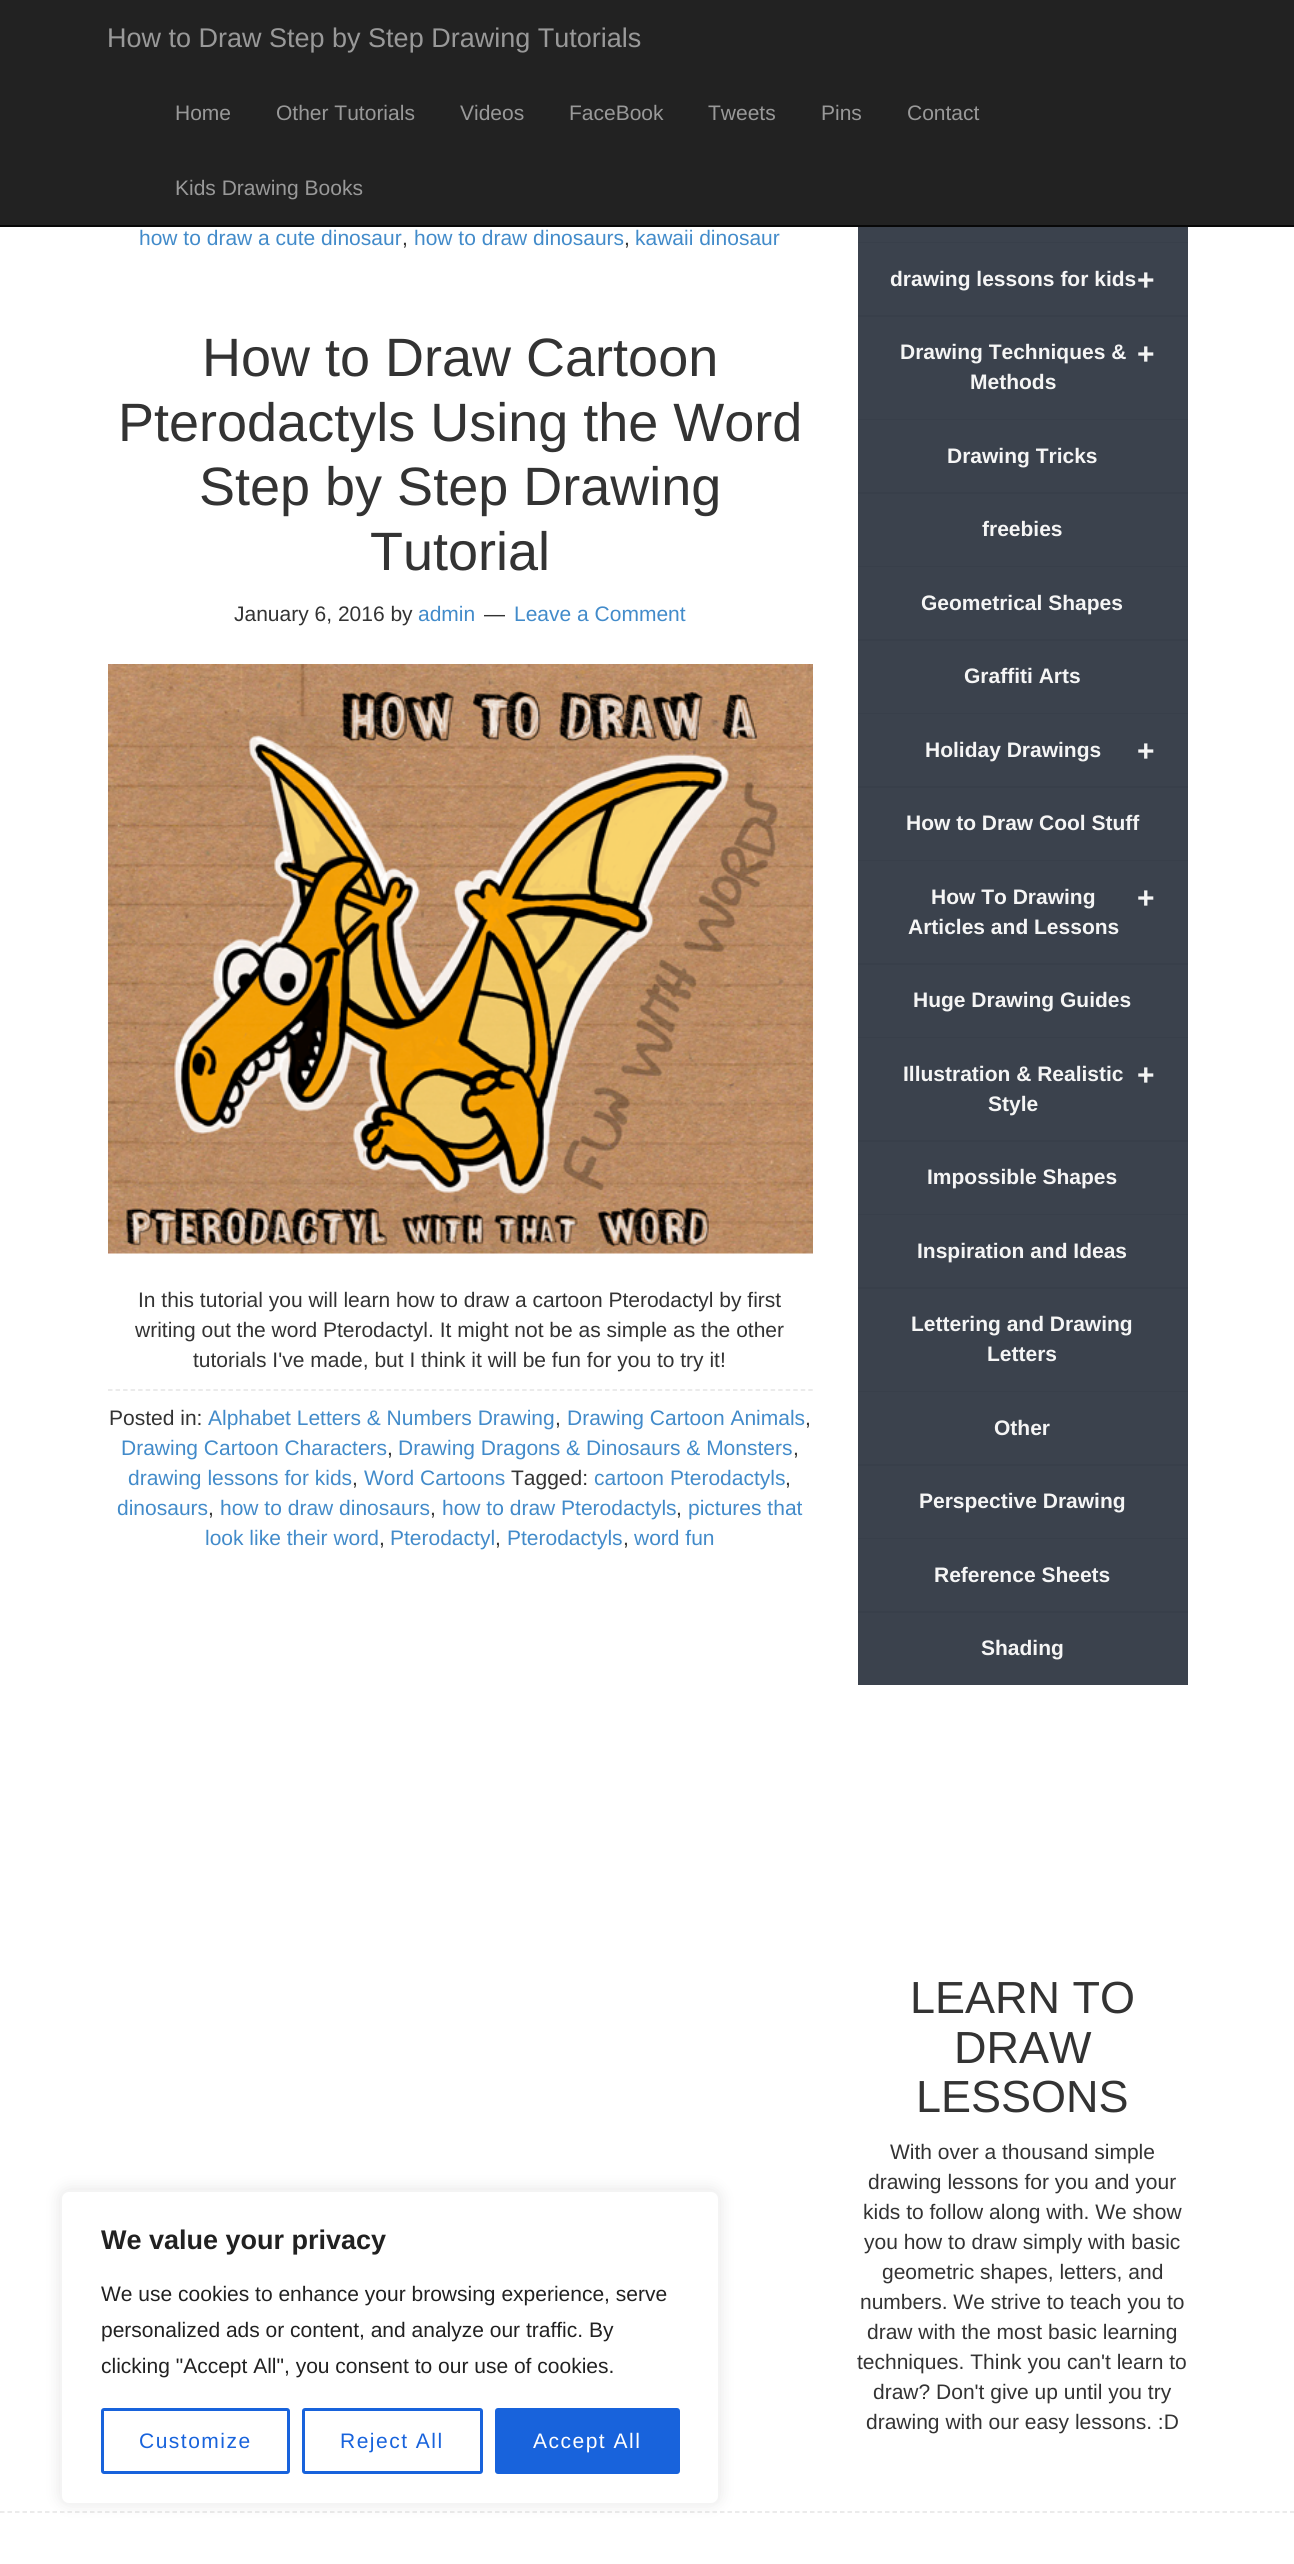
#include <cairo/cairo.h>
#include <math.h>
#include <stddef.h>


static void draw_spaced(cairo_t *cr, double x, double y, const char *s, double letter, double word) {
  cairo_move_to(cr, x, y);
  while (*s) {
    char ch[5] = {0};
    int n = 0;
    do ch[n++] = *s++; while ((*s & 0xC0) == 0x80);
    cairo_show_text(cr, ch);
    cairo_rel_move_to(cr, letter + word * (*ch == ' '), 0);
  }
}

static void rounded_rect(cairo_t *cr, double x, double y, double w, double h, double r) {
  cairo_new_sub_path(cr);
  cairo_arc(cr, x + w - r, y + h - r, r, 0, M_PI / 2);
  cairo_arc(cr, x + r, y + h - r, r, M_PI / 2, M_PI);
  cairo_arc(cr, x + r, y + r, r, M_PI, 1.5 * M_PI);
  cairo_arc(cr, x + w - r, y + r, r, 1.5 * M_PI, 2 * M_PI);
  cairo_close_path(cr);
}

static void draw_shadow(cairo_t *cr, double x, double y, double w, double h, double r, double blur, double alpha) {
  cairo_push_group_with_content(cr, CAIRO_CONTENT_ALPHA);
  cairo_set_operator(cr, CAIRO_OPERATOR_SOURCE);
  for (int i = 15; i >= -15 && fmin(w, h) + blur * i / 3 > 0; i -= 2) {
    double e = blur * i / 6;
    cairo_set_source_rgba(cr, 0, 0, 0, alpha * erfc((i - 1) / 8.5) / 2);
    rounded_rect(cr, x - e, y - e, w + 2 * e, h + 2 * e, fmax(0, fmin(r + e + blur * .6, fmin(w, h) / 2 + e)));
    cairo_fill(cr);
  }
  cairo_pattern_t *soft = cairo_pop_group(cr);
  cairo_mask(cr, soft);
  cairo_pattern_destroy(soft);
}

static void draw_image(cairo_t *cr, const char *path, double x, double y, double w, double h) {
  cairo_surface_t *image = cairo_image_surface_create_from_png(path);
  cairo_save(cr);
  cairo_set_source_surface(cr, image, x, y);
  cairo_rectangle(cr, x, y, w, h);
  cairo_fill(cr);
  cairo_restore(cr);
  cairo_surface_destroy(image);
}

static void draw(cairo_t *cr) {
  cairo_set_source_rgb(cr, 1, 1, 1);
  cairo_paint(cr);
  cairo_set_source_rgb(cr, 34 / 255.0, 34 / 255.0, 34 / 255.0);
  cairo_rectangle(cr, 0, 0, 1294, 225);
  cairo_fill(cr);
  cairo_set_source_rgb(cr, 8 / 255.0, 8 / 255.0, 8 / 255.0);
  cairo_rectangle(cr, 0, 225, 1294, 2);
  cairo_fill(cr);
  draw_image(cr, "images/1.png", 108, 664, 705, 590);
  cairo_new_path(cr);
  cairo_move_to(cr, 108, 1390);
  cairo_line_to(cr, 813, 1390);
  cairo_set_source_rgb(cr, 229 / 255.0, 229 / 255.0, 229 / 255.0);
  cairo_set_line_width(cr, 1.5);
  cairo_set_dash(cr, (double[]){4.5, 3.03}, 2, 0);
  cairo_stroke(cr);
  cairo_set_source_rgb(cr, 59 / 255.0, 66 / 255.0, 77 / 255.0);
  cairo_rectangle(cr, 858, 227, 330, 15);
  cairo_fill(cr);
  cairo_set_source_rgb(cr, 56 / 255.0, 63 / 255.0, 74 / 255.0);
  cairo_rectangle(cr, 858, 242, 330, 1);
  cairo_fill(cr);
  cairo_set_source_rgb(cr, 59 / 255.0, 66 / 255.0, 77 / 255.0);
  cairo_rectangle(cr, 858, 243, 330, 72);
  cairo_fill(cr);
  cairo_set_source_rgb(cr, 56 / 255.0, 63 / 255.0, 74 / 255.0);
  cairo_rectangle(cr, 858, 315, 330, 2);
  cairo_fill(cr);
  cairo_set_source_rgb(cr, 59 / 255.0, 66 / 255.0, 77 / 255.0);
  cairo_rectangle(cr, 858, 317, 330, 102);
  cairo_fill(cr);
  cairo_set_source_rgb(cr, 56 / 255.0, 63 / 255.0, 74 / 255.0);
  cairo_rectangle(cr, 858, 419, 330, 1);
  cairo_fill(cr);
  cairo_set_source_rgb(cr, 59 / 255.0, 66 / 255.0, 77 / 255.0);
  cairo_rectangle(cr, 858, 420, 330, 72);
  cairo_fill(cr);
  cairo_set_source_rgb(cr, 56 / 255.0, 63 / 255.0, 74 / 255.0);
  cairo_rectangle(cr, 858, 492, 330, 2);
  cairo_fill(cr);
  cairo_set_source_rgb(cr, 59 / 255.0, 66 / 255.0, 77 / 255.0);
  cairo_rectangle(cr, 858, 494, 330, 72);
  cairo_fill(cr);
  cairo_set_source_rgb(cr, 56 / 255.0, 63 / 255.0, 74 / 255.0);
  cairo_rectangle(cr, 858, 566, 330, 1);
  cairo_fill(cr);
  cairo_set_source_rgb(cr, 59 / 255.0, 66 / 255.0, 77 / 255.0);
  cairo_rectangle(cr, 858, 567, 330, 72);
  cairo_fill(cr);
  cairo_set_source_rgb(cr, 56 / 255.0, 63 / 255.0, 74 / 255.0);
  cairo_rectangle(cr, 858, 639, 330, 2);
  cairo_fill(cr);
  cairo_set_source_rgb(cr, 59 / 255.0, 66 / 255.0, 77 / 255.0);
  cairo_rectangle(cr, 858, 641, 330, 72);
  cairo_fill(cr);
  cairo_set_source_rgb(cr, 56 / 255.0, 63 / 255.0, 74 / 255.0);
  cairo_rectangle(cr, 858, 713, 330, 1);
  cairo_fill(cr);
  cairo_set_source_rgb(cr, 59 / 255.0, 66 / 255.0, 77 / 255.0);
  cairo_rectangle(cr, 858, 714, 330, 72);
  cairo_fill(cr);
  cairo_set_source_rgb(cr, 56 / 255.0, 63 / 255.0, 74 / 255.0);
  cairo_rectangle(cr, 858, 786, 330, 2);
  cairo_fill(cr);
  cairo_set_source_rgb(cr, 59 / 255.0, 66 / 255.0, 77 / 255.0);
  cairo_rectangle(cr, 858, 788, 330, 72);
  cairo_fill(cr);
  cairo_set_source_rgb(cr, 56 / 255.0, 63 / 255.0, 74 / 255.0);
  cairo_rectangle(cr, 858, 860, 330, 1);
  cairo_fill(cr);
  cairo_set_source_rgb(cr, 59 / 255.0, 66 / 255.0, 77 / 255.0);
  cairo_rectangle(cr, 858, 861, 330, 102);
  cairo_fill(cr);
  cairo_set_source_rgb(cr, 56 / 255.0, 63 / 255.0, 74 / 255.0);
  cairo_rectangle(cr, 858, 963, 330, 2);
  cairo_fill(cr);
  cairo_set_source_rgb(cr, 59 / 255.0, 66 / 255.0, 77 / 255.0);
  cairo_rectangle(cr, 858, 965, 330, 72);
  cairo_fill(cr);
  cairo_set_source_rgb(cr, 56 / 255.0, 63 / 255.0, 74 / 255.0);
  cairo_rectangle(cr, 858, 1037, 330, 1);
  cairo_fill(cr);
  cairo_set_source_rgb(cr, 59 / 255.0, 66 / 255.0, 77 / 255.0);
  cairo_rectangle(cr, 858, 1038, 330, 102);
  cairo_fill(cr);
  cairo_set_source_rgb(cr, 56 / 255.0, 63 / 255.0, 74 / 255.0);
  cairo_rectangle(cr, 858, 1140, 330, 2);
  cairo_fill(cr);
  cairo_set_source_rgb(cr, 59 / 255.0, 66 / 255.0, 77 / 255.0);
  cairo_rectangle(cr, 858, 1142, 330, 72);
  cairo_fill(cr);
  cairo_set_source_rgb(cr, 56 / 255.0, 63 / 255.0, 74 / 255.0);
  cairo_rectangle(cr, 858, 1214, 330, 1);
  cairo_fill(cr);
  cairo_set_source_rgb(cr, 59 / 255.0, 66 / 255.0, 77 / 255.0);
  cairo_rectangle(cr, 858, 1215, 330, 72);
  cairo_fill(cr);
  cairo_set_source_rgb(cr, 56 / 255.0, 63 / 255.0, 74 / 255.0);
  cairo_rectangle(cr, 858, 1287, 330, 2);
  cairo_fill(cr);
  cairo_set_source_rgb(cr, 59 / 255.0, 66 / 255.0, 77 / 255.0);
  cairo_rectangle(cr, 858, 1289, 330, 102);
  cairo_fill(cr);
  cairo_set_source_rgb(cr, 56 / 255.0, 63 / 255.0, 74 / 255.0);
  cairo_rectangle(cr, 858, 1391, 330, 1);
  cairo_fill(cr);
  cairo_set_source_rgb(cr, 59 / 255.0, 66 / 255.0, 77 / 255.0);
  cairo_rectangle(cr, 858, 1392, 330, 72);
  cairo_fill(cr);
  cairo_set_source_rgb(cr, 56 / 255.0, 63 / 255.0, 74 / 255.0);
  cairo_rectangle(cr, 858, 1464, 330, 2);
  cairo_fill(cr);
  cairo_set_source_rgb(cr, 59 / 255.0, 66 / 255.0, 77 / 255.0);
  cairo_rectangle(cr, 858, 1466, 330, 72);
  cairo_fill(cr);
  cairo_set_source_rgb(cr, 56 / 255.0, 63 / 255.0, 74 / 255.0);
  cairo_rectangle(cr, 858, 1538, 330, 1);
  cairo_fill(cr);
  cairo_set_source_rgb(cr, 59 / 255.0, 66 / 255.0, 77 / 255.0);
  cairo_rectangle(cr, 858, 1539, 330, 72);
  cairo_fill(cr);
  cairo_set_source_rgb(cr, 56 / 255.0, 63 / 255.0, 74 / 255.0);
  cairo_rectangle(cr, 858, 1611, 330, 2);
  cairo_fill(cr);
  cairo_set_source_rgb(cr, 59 / 255.0, 66 / 255.0, 77 / 255.0);
  cairo_rectangle(cr, 858, 1613, 330, 72);
  cairo_fill(cr);
  cairo_new_path(cr);
  cairo_move_to(cr, 0, 2512);
  cairo_line_to(cr, 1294.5, 2512);
  cairo_set_source_rgb(cr, 229 / 255.0, 229 / 255.0, 229 / 255.0);
  cairo_set_dash(cr, (double[]){4.5, 3}, 2, 0);
  cairo_stroke(cr);
  cairo_set_source_rgb(cr, 172 / 255.0, 171 / 255.0, 171 / 255.0);
  draw_shadow(cr, 60, 2189, 660, 315, 9, 7.5, 0.3);
  cairo_set_source_rgb(cr, 1, 1, 1);
  rounded_rect(cr, 61, 2191, 658, 313, 8);
  cairo_fill_preserve(cr);
  cairo_set_source_rgb(cr, 244 / 255.0, 244 / 255.0, 244 / 255.0);
  cairo_set_line_width(cr, 2);
  cairo_set_dash(cr, NULL, 0, 0);
  cairo_stroke(cr);
  rounded_rect(cr, 102.5, 2409.5, 186, 63, 1.5);
  cairo_set_source_rgb(cr, 24 / 255.0, 99 / 255.0, 220 / 255.0);
  cairo_set_line_width(cr, 3);
  cairo_stroke(cr);
  rounded_rect(cr, 303.5, 2409.5, 178, 63, 1.5);
  cairo_stroke(cr);
  rounded_rect(cr, 496.5, 2409.5, 182, 63, 1.5);
  cairo_fill_preserve(cr);
  cairo_stroke(cr);
  cairo_select_font_face(cr, "Liberation Sans", CAIRO_FONT_SLANT_NORMAL, CAIRO_FONT_WEIGHT_NORMAL);
  cairo_set_font_size(cr, 27);
  cairo_set_source_rgb(cr, 153 / 255.0, 153 / 255.0, 153 / 255.0);
  cairo_move_to(cr, 107, 47);
  cairo_show_text(cr, "How to Draw Step by Step Drawing Tutorials");
  cairo_set_font_size(cr, 21);
  cairo_move_to(cr, 175, 120);
  cairo_show_text(cr, "Home");
  cairo_move_to(cr, 276, 120);
  cairo_show_text(cr, "Other Tutorials");
  cairo_move_to(cr, 460, 120);
  cairo_show_text(cr, "Videos");
  cairo_move_to(cr, 569, 120);
  cairo_show_text(cr, "FaceBook");
  cairo_move_to(cr, 708, 120);
  cairo_show_text(cr, "Tweets");
  cairo_move_to(cr, 821, 120);
  cairo_show_text(cr, "Pins");
  cairo_move_to(cr, 907, 120);
  cairo_show_text(cr, "Contact");
  cairo_move_to(cr, 175, 195);
  cairo_show_text(cr, "Kids Drawing Books");
  cairo_set_source_rgb(cr, 66 / 255.0, 139 / 255.0, 202 / 255.0);
  cairo_move_to(cr, 139, 245);
  cairo_show_text(cr, "how to draw a cute dinosaur");
  cairo_set_source_rgb(cr, 51 / 255.0, 51 / 255.0, 51 / 255.0);
  cairo_move_to(cr, 402, 245);
  cairo_show_text(cr, ",");
  cairo_set_source_rgb(cr, 66 / 255.0, 139 / 255.0, 202 / 255.0);
  cairo_move_to(cr, 414, 245);
  cairo_show_text(cr, "how to draw dinosaurs");
  cairo_set_source_rgb(cr, 51 / 255.0, 51 / 255.0, 51 / 255.0);
  cairo_move_to(cr, 624, 245);
  cairo_show_text(cr, ",");
  cairo_set_source_rgb(cr, 66 / 255.0, 139 / 255.0, 202 / 255.0);
  cairo_move_to(cr, 635, 245);
  cairo_show_text(cr, "kawaii dinosaur");
  cairo_set_font_size(cr, 54);
  cairo_set_source_rgb(cr, 51 / 255.0, 51 / 255.0, 51 / 255.0);
  cairo_move_to(cr, 202, 376);
  cairo_show_text(cr, "How to Draw Cartoon");
  cairo_move_to(cr, 118, 441);
  cairo_show_text(cr, "Pterodactyls Using the Word");
  cairo_move_to(cr, 199, 505);
  cairo_show_text(cr, "Step by Step Drawing");
  cairo_move_to(cr, 370, 570);
  cairo_show_text(cr, "Tutorial");
  cairo_set_font_size(cr, 21);
  cairo_move_to(cr, 234, 621);
  cairo_show_text(cr, "January 6, 2016 by");
  cairo_set_source_rgb(cr, 66 / 255.0, 139 / 255.0, 202 / 255.0);
  cairo_move_to(cr, 418, 621);
  cairo_show_text(cr, "admin");
  cairo_set_source_rgb(cr, 51 / 255.0, 51 / 255.0, 51 / 255.0);
  cairo_move_to(cr, 484, 621);
  cairo_show_text(cr, "—");
  cairo_set_source_rgb(cr, 66 / 255.0, 139 / 255.0, 202 / 255.0);
  cairo_move_to(cr, 514, 621);
  cairo_show_text(cr, "Leave a Comment");
  cairo_set_source_rgb(cr, 51 / 255.0, 51 / 255.0, 51 / 255.0);
  cairo_move_to(cr, 138, 1307);
  cairo_show_text(cr, "In this tutorial you will learn how to draw a cartoon Pterodactyl by first");
  cairo_move_to(cr, 135, 1337);
  cairo_show_text(cr, "writing out the word Pterodactyl. It might not be as simple as the other");
  cairo_move_to(cr, 193, 1367);
  cairo_show_text(cr, "tutorials I've made, but I think it will be fun for you to try it!");
  cairo_move_to(cr, 109, 1425);
  cairo_show_text(cr, "Posted in:");
  cairo_set_source_rgb(cr, 66 / 255.0, 139 / 255.0, 202 / 255.0);
  cairo_move_to(cr, 208, 1425);
  cairo_show_text(cr, "Alphabet Letters & Numbers Drawing");
  cairo_set_source_rgb(cr, 51 / 255.0, 51 / 255.0, 51 / 255.0);
  cairo_move_to(cr, 555, 1425);
  cairo_show_text(cr, ",");
  cairo_set_source_rgb(cr, 66 / 255.0, 139 / 255.0, 202 / 255.0);
  cairo_move_to(cr, 567, 1425);
  cairo_show_text(cr, "Drawing Cartoon Animals");
  cairo_set_source_rgb(cr, 51 / 255.0, 51 / 255.0, 51 / 255.0);
  cairo_move_to(cr, 805, 1425);
  cairo_show_text(cr, ",");
  cairo_set_source_rgb(cr, 66 / 255.0, 139 / 255.0, 202 / 255.0);
  cairo_move_to(cr, 121, 1455);
  cairo_show_text(cr, "Drawing Cartoon Characters");
  cairo_set_source_rgb(cr, 51 / 255.0, 51 / 255.0, 51 / 255.0);
  cairo_move_to(cr, 387, 1455);
  cairo_show_text(cr, ",");
  cairo_set_source_rgb(cr, 66 / 255.0, 139 / 255.0, 202 / 255.0);
  cairo_move_to(cr, 398, 1455);
  cairo_show_text(cr, "Drawing Dragons & Dinosaurs & Monsters");
  cairo_set_source_rgb(cr, 51 / 255.0, 51 / 255.0, 51 / 255.0);
  cairo_move_to(cr, 793, 1455);
  cairo_show_text(cr, ",");
  cairo_set_source_rgb(cr, 66 / 255.0, 139 / 255.0, 202 / 255.0);
  cairo_move_to(cr, 128, 1485);
  cairo_show_text(cr, "drawing lessons for kids");
  cairo_set_source_rgb(cr, 51 / 255.0, 51 / 255.0, 51 / 255.0);
  cairo_move_to(cr, 352, 1485);
  cairo_show_text(cr, ",");
  cairo_set_source_rgb(cr, 66 / 255.0, 139 / 255.0, 202 / 255.0);
  cairo_move_to(cr, 364, 1485);
  cairo_show_text(cr, "Word Cartoons");
  cairo_set_source_rgb(cr, 51 / 255.0, 51 / 255.0, 51 / 255.0);
  cairo_move_to(cr, 511, 1485);
  cairo_show_text(cr, "Tagged:");
  cairo_set_source_rgb(cr, 66 / 255.0, 139 / 255.0, 202 / 255.0);
  cairo_move_to(cr, 594, 1485);
  cairo_show_text(cr, "cartoon Pterodactyls");
  cairo_set_source_rgb(cr, 51 / 255.0, 51 / 255.0, 51 / 255.0);
  cairo_move_to(cr, 785, 1485);
  cairo_show_text(cr, ",");
  cairo_set_source_rgb(cr, 66 / 255.0, 139 / 255.0, 202 / 255.0);
  cairo_move_to(cr, 117, 1515);
  cairo_show_text(cr, "dinosaurs");
  cairo_set_source_rgb(cr, 51 / 255.0, 51 / 255.0, 51 / 255.0);
  cairo_move_to(cr, 208, 1515);
  cairo_show_text(cr, ",");
  cairo_set_source_rgb(cr, 66 / 255.0, 139 / 255.0, 202 / 255.0);
  cairo_move_to(cr, 220, 1515);
  cairo_show_text(cr, "how to draw dinosaurs");
  cairo_set_source_rgb(cr, 51 / 255.0, 51 / 255.0, 51 / 255.0);
  cairo_move_to(cr, 430, 1515);
  cairo_show_text(cr, ",");
  cairo_set_source_rgb(cr, 66 / 255.0, 139 / 255.0, 202 / 255.0);
  cairo_move_to(cr, 442, 1515);
  cairo_show_text(cr, "how to draw Pterodactyls");
  cairo_set_source_rgb(cr, 51 / 255.0, 51 / 255.0, 51 / 255.0);
  cairo_move_to(cr, 676, 1515);
  cairo_show_text(cr, ",");
  cairo_set_source_rgb(cr, 66 / 255.0, 139 / 255.0, 202 / 255.0);
  cairo_move_to(cr, 688, 1515);
  cairo_show_text(cr, "pictures that");
  cairo_move_to(cr, 205, 1545);
  cairo_show_text(cr, "look like their word");
  cairo_set_source_rgb(cr, 51 / 255.0, 51 / 255.0, 51 / 255.0);
  cairo_move_to(cr, 379, 1545);
  cairo_show_text(cr, ",");
  cairo_set_source_rgb(cr, 66 / 255.0, 139 / 255.0, 202 / 255.0);
  cairo_move_to(cr, 390, 1545);
  cairo_show_text(cr, "Pterodactyl");
  cairo_set_source_rgb(cr, 51 / 255.0, 51 / 255.0, 51 / 255.0);
  cairo_move_to(cr, 495, 1545);
  cairo_show_text(cr, ",");
  cairo_set_source_rgb(cr, 66 / 255.0, 139 / 255.0, 202 / 255.0);
  cairo_move_to(cr, 507, 1545);
  cairo_show_text(cr, "Pterodactyls");
  cairo_set_source_rgb(cr, 51 / 255.0, 51 / 255.0, 51 / 255.0);
  cairo_move_to(cr, 623, 1545);
  cairo_show_text(cr, ",");
  cairo_set_source_rgb(cr, 66 / 255.0, 139 / 255.0, 202 / 255.0);
  cairo_move_to(cr, 634, 1545);
  cairo_show_text(cr, "word fun");
  cairo_select_font_face(cr, "Liberation Sans", CAIRO_FONT_SLANT_NORMAL, CAIRO_FONT_WEIGHT_BOLD);
  cairo_set_source_rgb(cr, 245 / 255.0, 245 / 255.0, 245 / 255.0);
  cairo_move_to(cr, 890, 286);
  cairo_show_text(cr, "drawing lessons for kids");
  cairo_set_font_size(cr, 30);
  cairo_move_to(cr, 1137, 290);
  cairo_show_text(cr, "+");
  cairo_set_font_size(cr, 21);
  cairo_move_to(cr, 900, 359);
  cairo_show_text(cr, "Drawing Techniques &");
  cairo_set_font_size(cr, 30);
  cairo_move_to(cr, 1137, 364);
  cairo_show_text(cr, "+");
  cairo_set_font_size(cr, 21);
  cairo_move_to(cr, 970, 389);
  cairo_show_text(cr, "Methods");
  cairo_move_to(cr, 947, 463);
  cairo_show_text(cr, "Drawing Tricks");
  cairo_move_to(cr, 982, 536);
  cairo_show_text(cr, "freebies");
  cairo_move_to(cr, 921, 610);
  cairo_show_text(cr, "Geometrical Shapes");
  cairo_move_to(cr, 964, 683);
  cairo_show_text(cr, "Graffiti Arts");
  cairo_move_to(cr, 925, 757);
  cairo_show_text(cr, "Holiday Drawings");
  cairo_set_font_size(cr, 30);
  cairo_move_to(cr, 1137, 761);
  cairo_show_text(cr, "+");
  cairo_set_font_size(cr, 21);
  cairo_move_to(cr, 906, 830);
  cairo_show_text(cr, "How to Draw Cool Stuff");
  cairo_move_to(cr, 931, 904);
  cairo_show_text(cr, "How To Drawing");
  cairo_set_font_size(cr, 30);
  cairo_move_to(cr, 1137, 908);
  cairo_show_text(cr, "+");
  cairo_set_font_size(cr, 21);
  cairo_move_to(cr, 908, 934);
  cairo_show_text(cr, "Articles and Lessons");
  cairo_move_to(cr, 913, 1007);
  cairo_show_text(cr, "Huge Drawing Guides");
  cairo_move_to(cr, 903, 1081);
  cairo_show_text(cr, "Illustration & Realistic");
  cairo_set_font_size(cr, 30);
  cairo_move_to(cr, 1137, 1085);
  cairo_show_text(cr, "+");
  cairo_set_font_size(cr, 21);
  cairo_move_to(cr, 988, 1111);
  cairo_show_text(cr, "Style");
  cairo_move_to(cr, 927, 1184);
  cairo_show_text(cr, "Impossible Shapes");
  cairo_move_to(cr, 917, 1258);
  cairo_show_text(cr, "Inspiration and Ideas");
  cairo_move_to(cr, 911, 1331);
  cairo_show_text(cr, "Lettering and Drawing");
  cairo_move_to(cr, 987, 1361);
  cairo_show_text(cr, "Letters");
  cairo_move_to(cr, 994, 1435);
  cairo_show_text(cr, "Other");
  cairo_move_to(cr, 919, 1508);
  cairo_show_text(cr, "Perspective Drawing");
  cairo_move_to(cr, 934, 1582);
  cairo_show_text(cr, "Reference Sheets");
  cairo_move_to(cr, 981, 1655);
  cairo_show_text(cr, "Shading");
  cairo_select_font_face(cr, "Liberation Sans", CAIRO_FONT_SLANT_NORMAL, CAIRO_FONT_WEIGHT_NORMAL);
  cairo_set_font_size(cr, 45);
  cairo_set_source_rgb(cr, 51 / 255.0, 51 / 255.0, 51 / 255.0);
  cairo_move_to(cr, 910, 2013);
  cairo_show_text(cr, "LEARN TO");
  cairo_move_to(cr, 954, 2063);
  cairo_show_text(cr, "DRAW");
  cairo_move_to(cr, 916, 2112);
  cairo_show_text(cr, "LESSONS");
  cairo_set_font_size(cr, 21);
  cairo_move_to(cr, 890, 2159);
  cairo_show_text(cr, "With over a thousand simple");
  cairo_move_to(cr, 868, 2189);
  cairo_show_text(cr, "drawing lessons for you and your");
  cairo_move_to(cr, 863, 2219);
  cairo_show_text(cr, "kids to follow along with. We show");
  cairo_move_to(cr, 864, 2249);
  cairo_show_text(cr, "you how to draw simply with basic");
  cairo_move_to(cr, 882, 2279);
  cairo_show_text(cr, "geometric shapes, letters, and");
  cairo_move_to(cr, 860, 2309);
  cairo_show_text(cr, "numbers. We strive to teach you to");
  cairo_move_to(cr, 867, 2339);
  cairo_show_text(cr, "draw with the most basic learning");
  cairo_move_to(cr, 857, 2369);
  cairo_show_text(cr, "techniques. Think you can't learn to");
  cairo_move_to(cr, 873, 2399);
  cairo_show_text(cr, "draw? Don't give up until you try");
  cairo_move_to(cr, 866, 2429);
  cairo_show_text(cr, "drawing with our easy lessons. :D");
  cairo_select_font_face(cr, "Liberation Sans", CAIRO_FONT_SLANT_NORMAL, CAIRO_FONT_WEIGHT_BOLD);
  cairo_set_font_size(cr, 27);
  cairo_set_source_rgb(cr, 33 / 255.0, 33 / 255.0, 33 / 255.0);
  cairo_move_to(cr, 101, 2249);
  cairo_show_text(cr, "We value your privacy");
  cairo_select_font_face(cr, "Liberation Sans", CAIRO_FONT_SLANT_NORMAL, CAIRO_FONT_WEIGHT_NORMAL);
  cairo_set_font_size(cr, 21);
  cairo_move_to(cr, 101, 2301);
  cairo_show_text(cr, "We use cookies to enhance your browsing experience, serve");
  cairo_move_to(cr, 101, 2337);
  cairo_show_text(cr, "personalized ads or content, and analyze our traffic. By");
  cairo_move_to(cr, 101, 2373);
  cairo_show_text(cr, "clicking \"Accept All\", you consent to our use of cookies.");
  cairo_set_source_rgb(cr, 24 / 255.0, 99 / 255.0, 220 / 255.0);
  draw_spaced(cr, 139, 2448, "Customize", 1.5, 0);
  draw_spaced(cr, 340, 2448, "Reject All", 1.5, 0);
  cairo_set_source_rgb(cr, 1, 1, 1);
  draw_spaced(cr, 533, 2448, "Accept All", 1.5, 0);
}

int main(void) {
  cairo_surface_t *surface = cairo_image_surface_create(CAIRO_FORMAT_RGB24, 1294, 2564);
  cairo_t *cr = cairo_create(surface);
  cairo_font_options_t *options = cairo_font_options_create();
  cairo_font_options_set_hint_metrics(options, CAIRO_HINT_METRICS_OFF);
  cairo_font_options_set_hint_style(options, CAIRO_HINT_STYLE_NONE);
  cairo_set_font_options(cr, options);
  cairo_set_miter_limit(cr, 4);
  draw(cr);
  cairo_surface_write_to_png(surface, "out.png");
  cairo_font_options_destroy(options);
  cairo_destroy(cr);
  cairo_surface_destroy(surface);
  return 0;
}
